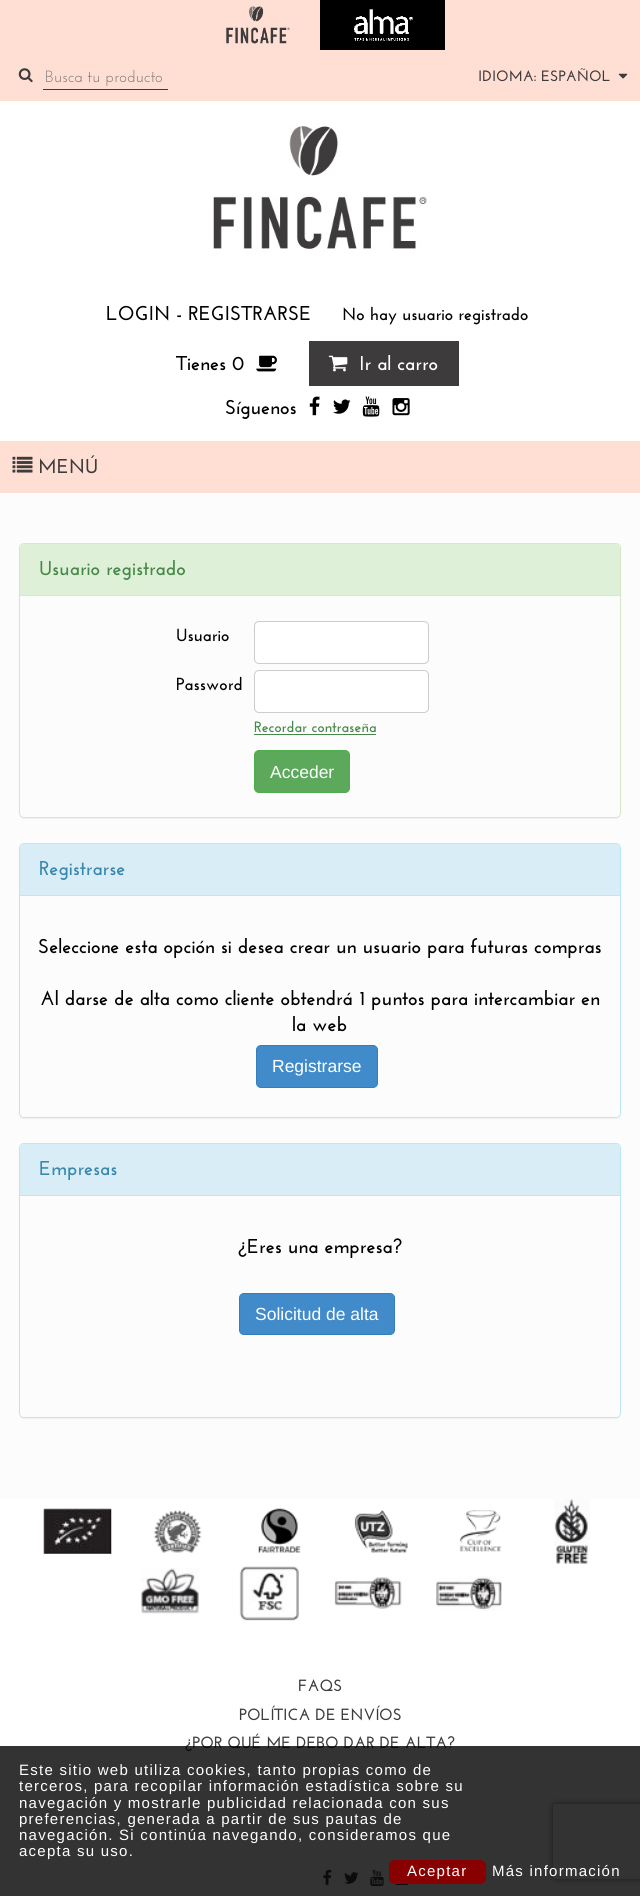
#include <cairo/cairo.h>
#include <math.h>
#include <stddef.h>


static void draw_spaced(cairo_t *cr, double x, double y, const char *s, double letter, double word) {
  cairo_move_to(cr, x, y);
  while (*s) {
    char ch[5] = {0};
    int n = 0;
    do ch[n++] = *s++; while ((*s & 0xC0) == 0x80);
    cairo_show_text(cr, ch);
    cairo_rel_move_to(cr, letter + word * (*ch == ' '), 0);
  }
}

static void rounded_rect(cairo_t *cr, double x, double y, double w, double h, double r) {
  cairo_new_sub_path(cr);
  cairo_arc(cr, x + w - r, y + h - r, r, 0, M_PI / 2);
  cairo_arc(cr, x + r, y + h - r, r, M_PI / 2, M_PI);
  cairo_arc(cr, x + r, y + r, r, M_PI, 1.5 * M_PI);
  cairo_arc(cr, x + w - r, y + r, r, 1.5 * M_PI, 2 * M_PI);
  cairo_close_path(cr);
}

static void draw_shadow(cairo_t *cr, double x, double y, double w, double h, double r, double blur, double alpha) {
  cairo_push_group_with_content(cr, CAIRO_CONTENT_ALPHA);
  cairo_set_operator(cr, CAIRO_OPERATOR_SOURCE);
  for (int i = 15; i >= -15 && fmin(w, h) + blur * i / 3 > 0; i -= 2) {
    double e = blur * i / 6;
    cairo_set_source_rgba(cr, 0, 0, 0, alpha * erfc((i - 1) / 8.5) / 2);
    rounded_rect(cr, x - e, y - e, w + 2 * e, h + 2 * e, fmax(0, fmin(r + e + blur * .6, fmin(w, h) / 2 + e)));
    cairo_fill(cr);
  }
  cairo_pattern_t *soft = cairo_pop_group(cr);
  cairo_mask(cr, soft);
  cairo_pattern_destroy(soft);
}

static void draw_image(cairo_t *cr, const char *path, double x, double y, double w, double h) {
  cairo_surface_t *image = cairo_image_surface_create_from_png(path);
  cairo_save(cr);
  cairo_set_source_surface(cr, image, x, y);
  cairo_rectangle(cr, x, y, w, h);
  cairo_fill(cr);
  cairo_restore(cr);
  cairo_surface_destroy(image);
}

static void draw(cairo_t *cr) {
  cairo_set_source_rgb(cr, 1, 1, 1);
  cairo_paint(cr);
  cairo_set_source_rgb(cr, 1, 223 / 255.0, 211 / 255.0);
  cairo_rectangle(cr, 0, 0, 640, 101);
  cairo_fill(cr);
  draw_image(cr, "images/1.png", 226, 6, 64, 38);
  cairo_set_source_rgb(cr, 0, 0, 0);
  cairo_rectangle(cr, 320, 0, 125, 50);
  cairo_fill(cr);
  draw_image(cr, "images/2.png", 354, 9, 59, 32);
  draw_image(cr, "images/3.png", 18, 68, 15, 15);
  cairo_set_source_rgb(cr, 61 / 255.0, 59 / 255.0, 60 / 255.0);
  cairo_rectangle(cr, 43, 89, 125, 1);
  cairo_fill(cr);
  draw_image(cr, "images/4.png", 618, 73, 10, 6);
  draw_image(cr, "images/5.png", 213, 126, 214, 123);
  draw_image(cr, "images/6.png", 256, 355, 21, 17);
  cairo_rectangle(cr, 309, 341, 150, 45);
  cairo_fill(cr);
  draw_image(cr, "images/7.png", 328, 355, 20, 17);
  draw_image(cr, "images/8.png", 309, 396, 11, 20);
  draw_image(cr, "images/9.png", 333, 399, 18, 15);
  draw_image(cr, "images/10.png", 362, 396, 18, 21);
  draw_image(cr, "images/11.png", 392, 398, 18, 18);
  cairo_set_source_rgb(cr, 1, 223 / 255.0, 211 / 255.0);
  cairo_rectangle(cr, 0, 441, 640, 52);
  cairo_fill(cr);
  draw_image(cr, "images/12.png", 12, 456, 21, 17);
  cairo_set_source_rgb(cr, 252 / 255.0, 252 / 255.0, 252 / 255.0);
  cairo_rectangle(cr, 0, 493, 640, 1006);
  cairo_fill(cr);
  cairo_save(cr);
  cairo_set_fill_rule(cr, CAIRO_FILL_RULE_EVEN_ODD);
  cairo_new_path(cr);
  cairo_move_to(cr, 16, 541);
  cairo_line_to(cr, 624, 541);
  cairo_line_to(cr, 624, 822);
  cairo_line_to(cr, 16, 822);
  cairo_close_path(cr);
  cairo_move_to(cr, 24, 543);
  cairo_line_to(cr, 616, 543);
  cairo_curve_to(cr, 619, 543, 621, 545, 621, 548);
  cairo_line_to(cr, 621, 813);
  cairo_curve_to(cr, 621, 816, 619, 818, 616, 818);
  cairo_line_to(cr, 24, 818);
  cairo_curve_to(cr, 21, 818, 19, 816, 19, 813);
  cairo_line_to(cr, 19, 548);
  cairo_curve_to(cr, 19, 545, 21, 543, 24, 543);
  cairo_close_path(cr);
  cairo_clip(cr);
  cairo_set_source_rgb(cr, 0, 0, 0);
  draw_shadow(cr, 19, 544, 602, 275, 5, 0.5, 0.05);
  cairo_restore(cr);
  rounded_rect(cr, 19.5, 543.5, 601, 274, 4.5);
  cairo_set_source_rgb(cr, 214 / 255.0, 233 / 255.0, 198 / 255.0);
  cairo_set_line_width(cr, 1);
  cairo_stroke(cr);
  cairo_set_source_rgb(cr, 223 / 255.0, 240 / 255.0, 216 / 255.0);
  cairo_new_path(cr);
  cairo_move_to(cr, 24, 544);
  cairo_line_to(cr, 616, 544);
  cairo_curve_to(cr, 618, 544, 620, 546, 620, 548);
  cairo_line_to(cr, 620, 596);
  cairo_line_to(cr, 20, 596);
  cairo_line_to(cr, 20, 548);
  cairo_curve_to(cr, 20, 546, 22, 544, 24, 544);
  cairo_close_path(cr);
  cairo_fill(cr);
  cairo_set_source_rgb(cr, 214 / 255.0, 233 / 255.0, 198 / 255.0);
  cairo_rectangle(cr, 20, 595, 600, 1);
  cairo_fill(cr);
  cairo_set_source_rgb(cr, 1, 1, 1);
  rounded_rect(cr, 254.5, 621.5, 174, 42, 4.5);
  cairo_fill_preserve(cr);
  cairo_set_source_rgb(cr, 204 / 255.0, 204 / 255.0, 204 / 255.0);
  cairo_stroke(cr);
  cairo_set_source_rgb(cr, 1, 1, 1);
  rounded_rect(cr, 254.5, 670.5, 174, 42, 4.5);
  cairo_fill_preserve(cr);
  cairo_set_source_rgb(cr, 204 / 255.0, 204 / 255.0, 204 / 255.0);
  cairo_stroke(cr);
  cairo_set_source_rgb(cr, 70 / 255.0, 136 / 255.0, 71 / 255.0);
  cairo_rectangle(cr, 254, 734, 122, 1);
  cairo_fill(cr);
  cairo_set_source_rgb(cr, 92 / 255.0, 169 / 255.0, 92 / 255.0);
  rounded_rect(cr, 254.5, 750.5, 95, 42, 4.5);
  cairo_fill_preserve(cr);
  cairo_set_source_rgb(cr, 76 / 255.0, 174 / 255.0, 76 / 255.0);
  cairo_stroke(cr);
  cairo_save(cr);
  cairo_set_fill_rule(cr, CAIRO_FILL_RULE_EVEN_ODD);
  cairo_new_path(cr);
  cairo_move_to(cr, 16, 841);
  cairo_line_to(cr, 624, 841);
  cairo_line_to(cr, 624, 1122);
  cairo_line_to(cr, 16, 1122);
  cairo_close_path(cr);
  cairo_move_to(cr, 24, 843);
  cairo_line_to(cr, 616, 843);
  cairo_curve_to(cr, 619, 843, 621, 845, 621, 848);
  cairo_line_to(cr, 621, 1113);
  cairo_curve_to(cr, 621, 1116, 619, 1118, 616, 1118);
  cairo_line_to(cr, 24, 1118);
  cairo_curve_to(cr, 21, 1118, 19, 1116, 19, 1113);
  cairo_line_to(cr, 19, 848);
  cairo_curve_to(cr, 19, 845, 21, 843, 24, 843);
  cairo_close_path(cr);
  cairo_clip(cr);
  cairo_set_source_rgb(cr, 0, 0, 0);
  draw_shadow(cr, 19, 844, 602, 275, 5, 0.5, 0.05);
  cairo_restore(cr);
  rounded_rect(cr, 19.5, 843.5, 601, 274, 4.5);
  cairo_set_source_rgb(cr, 188 / 255.0, 232 / 255.0, 241 / 255.0);
  cairo_stroke(cr);
  cairo_set_source_rgb(cr, 217 / 255.0, 237 / 255.0, 247 / 255.0);
  cairo_new_path(cr);
  cairo_move_to(cr, 24, 844);
  cairo_line_to(cr, 616, 844);
  cairo_curve_to(cr, 618, 844, 620, 846, 620, 848);
  cairo_line_to(cr, 620, 896);
  cairo_line_to(cr, 20, 896);
  cairo_line_to(cr, 20, 848);
  cairo_curve_to(cr, 20, 846, 22, 844, 24, 844);
  cairo_close_path(cr);
  cairo_fill(cr);
  cairo_set_source_rgb(cr, 188 / 255.0, 232 / 255.0, 241 / 255.0);
  cairo_rectangle(cr, 20, 895, 600, 1);
  cairo_fill(cr);
  cairo_set_source_rgb(cr, 66 / 255.0, 139 / 255.0, 202 / 255.0);
  rounded_rect(cr, 256.5, 1045.5, 121, 42, 4.5);
  cairo_fill_preserve(cr);
  cairo_set_source_rgb(cr, 53 / 255.0, 126 / 255.0, 189 / 255.0);
  cairo_stroke(cr);
  cairo_save(cr);
  cairo_set_fill_rule(cr, CAIRO_FILL_RULE_EVEN_ODD);
  cairo_new_path(cr);
  cairo_move_to(cr, 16, 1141);
  cairo_line_to(cr, 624, 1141);
  cairo_line_to(cr, 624, 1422);
  cairo_line_to(cr, 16, 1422);
  cairo_close_path(cr);
  cairo_move_to(cr, 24, 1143);
  cairo_line_to(cr, 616, 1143);
  cairo_curve_to(cr, 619, 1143, 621, 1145, 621, 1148);
  cairo_line_to(cr, 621, 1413);
  cairo_curve_to(cr, 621, 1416, 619, 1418, 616, 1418);
  cairo_line_to(cr, 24, 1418);
  cairo_curve_to(cr, 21, 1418, 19, 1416, 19, 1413);
  cairo_line_to(cr, 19, 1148);
  cairo_curve_to(cr, 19, 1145, 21, 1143, 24, 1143);
  cairo_close_path(cr);
  cairo_clip(cr);
  cairo_set_source_rgb(cr, 0, 0, 0);
  draw_shadow(cr, 19, 1144, 602, 275, 5, 0.5, 0.05);
  cairo_restore(cr);
  rounded_rect(cr, 19.5, 1143.5, 601, 274, 4.5);
  cairo_set_source_rgb(cr, 188 / 255.0, 232 / 255.0, 241 / 255.0);
  cairo_stroke(cr);
  cairo_set_source_rgb(cr, 217 / 255.0, 237 / 255.0, 247 / 255.0);
  cairo_new_path(cr);
  cairo_move_to(cr, 24, 1144);
  cairo_line_to(cr, 616, 1144);
  cairo_curve_to(cr, 618, 1144, 620, 1146, 620, 1148);
  cairo_line_to(cr, 620, 1196);
  cairo_line_to(cr, 20, 1196);
  cairo_line_to(cr, 20, 1148);
  cairo_curve_to(cr, 20, 1146, 22, 1144, 24, 1144);
  cairo_close_path(cr);
  cairo_fill(cr);
  cairo_set_source_rgb(cr, 188 / 255.0, 232 / 255.0, 241 / 255.0);
  cairo_rectangle(cr, 20, 1195, 600, 1);
  cairo_fill(cr);
  cairo_set_source_rgb(cr, 66 / 255.0, 139 / 255.0, 202 / 255.0);
  rounded_rect(cr, 239.5, 1293.5, 155, 41, 4.5);
  cairo_fill_preserve(cr);
  cairo_set_source_rgb(cr, 53 / 255.0, 126 / 255.0, 189 / 255.0);
  cairo_stroke(cr);
  draw_image(cr, "images/13.png", 43, 1508, 69, 46);
  draw_image(cr, "images/14.png", 153, 1510, 49, 43);
  draw_image(cr, "images/15.png", 258, 1508, 43, 45);
  draw_image(cr, "images/16.png", 354, 1510, 54, 43);
  draw_image(cr, "images/17.png", 459, 1510, 43, 42);
  draw_image(cr, "images/18.png", 554, 1498, 36, 66);
  draw_image(cr, "images/19.png", 141, 1568, 59, 46);
  draw_image(cr, "images/20.png", 239, 1566, 60, 55);
  draw_image(cr, "images/21.png", 334, 1577, 68, 32);
  draw_image(cr, "images/22.png", 436, 1576, 66, 35);
  draw_image(cr, "images/23.png", 323, 1869, 9, 16);
  draw_image(cr, "images/24.png", 344, 1872, 15, 12);
  draw_image(cr, "images/25.png", 370, 1869, 14, 18);
  draw_image(cr, "images/26.png", 395, 1884, 14, 1);
  cairo_save(cr);
  cairo_set_fill_rule(cr, CAIRO_FILL_RULE_EVEN_ODD);
  cairo_new_path(cr);
  cairo_move_to(cr, 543, 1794);
  cairo_line_to(cr, 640, 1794);
  cairo_line_to(cr, 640, 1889);
  cairo_line_to(cr, 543, 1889);
  cairo_close_path(cr);
  cairo_move_to(cr, 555.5, 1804);
  cairo_line_to(cr, 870.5, 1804);
  cairo_curve_to(cr, 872, 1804, 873, 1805, 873, 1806.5);
  cairo_line_to(cr, 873, 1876.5);
  cairo_curve_to(cr, 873, 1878, 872, 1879, 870.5, 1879);
  cairo_line_to(cr, 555.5, 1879);
  cairo_curve_to(cr, 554, 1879, 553, 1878, 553, 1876.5);
  cairo_line_to(cr, 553, 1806.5);
  cairo_curve_to(cr, 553, 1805, 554, 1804, 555.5, 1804);
  cairo_close_path(cr);
  cairo_clip(cr);
  cairo_set_source_rgb(cr, 128 / 255.0, 128 / 255.0, 128 / 255.0);
  draw_shadow(cr, 553, 1804, 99, 75, 2.5, 3, 1);
  cairo_restore(cr);
  cairo_select_font_face(cr, "Josefin Sans", CAIRO_FONT_SLANT_NORMAL, CAIRO_FONT_WEIGHT_NORMAL);
  cairo_set_font_size(cr, 16.25);
  cairo_set_source_rgb(cr, 117 / 255.0, 117 / 255.0, 117 / 255.0);
  cairo_move_to(cr, 45, 82);
  cairo_show_text(cr, "Busca tu producto");
  cairo_select_font_face(cr, "Josefin Sans", CAIRO_FONT_SLANT_NORMAL, CAIRO_FONT_WEIGHT_BOLD);
  cairo_set_font_size(cr, 15);
  cairo_set_source_rgb(cr, 61 / 255.0, 59 / 255.0, 60 / 255.0);
  cairo_move_to(cr, 478, 81);
  cairo_show_text(cr, "IDIOMA: ESPAÑOL");
  cairo_set_font_size(cr, 20);
  cairo_set_source_rgb(cr, 0, 0, 0);
  cairo_move_to(cr, 106, 320);
  cairo_show_text(cr, "LOGIN - REGISTRARSE");
  cairo_set_font_size(cr, 17.5);
  cairo_move_to(cr, 342, 320);
  cairo_show_text(cr, "No hay usuario registrado");
  cairo_set_font_size(cr, 20);
  cairo_move_to(cr, 176, 370);
  cairo_show_text(cr, "Tienes 0");
  cairo_set_source_rgb(cr, 1, 1, 1);
  cairo_move_to(cr, 359, 370);
  cairo_show_text(cr, "Ir al carro");
  cairo_set_source_rgb(cr, 0, 0, 0);
  cairo_move_to(cr, 225, 414);
  cairo_show_text(cr, "Síguenos");
  cairo_set_source_rgb(cr, 61 / 255.0, 59 / 255.0, 60 / 255.0);
  cairo_move_to(cr, 38, 473);
  cairo_show_text(cr, "MENÚ");
  cairo_set_source_rgb(cr, 70 / 255.0, 136 / 255.0, 71 / 255.0);
  cairo_move_to(cr, 39, 575);
  cairo_show_text(cr, "Usuario registrado");
  cairo_set_font_size(cr, 17.5);
  cairo_set_source_rgb(cr, 0, 0, 0);
  cairo_move_to(cr, 176, 641);
  cairo_show_text(cr, "Usuario");
  cairo_move_to(cr, 176, 690);
  cairo_show_text(cr, "Password");
  cairo_set_font_size(cr, 15);
  cairo_set_source_rgb(cr, 70 / 255.0, 136 / 255.0, 71 / 255.0);
  cairo_move_to(cr, 254, 732);
  cairo_show_text(cr, "Recordar contraseña");
  cairo_select_font_face(cr, "Liberation Sans", CAIRO_FONT_SLANT_NORMAL, CAIRO_FONT_WEIGHT_NORMAL);
  cairo_set_font_size(cr, 17.5);
  cairo_set_source_rgb(cr, 1, 1, 1);
  cairo_move_to(cr, 270, 778);
  cairo_show_text(cr, "Acceder");
  cairo_select_font_face(cr, "Josefin Sans", CAIRO_FONT_SLANT_NORMAL, CAIRO_FONT_WEIGHT_BOLD);
  cairo_set_font_size(cr, 20);
  cairo_set_source_rgb(cr, 58 / 255.0, 135 / 255.0, 173 / 255.0);
  cairo_move_to(cr, 39, 875);
  cairo_show_text(cr, "Registrarse");
  cairo_set_source_rgb(cr, 0, 0, 0);
  cairo_move_to(cr, 38, 953);
  cairo_show_text(cr, "Seleccione esta opción si desea crear un usuario para futuras compras");
  cairo_move_to(cr, 40, 1005);
  cairo_show_text(cr, "Al darse de alta como cliente obtendrá 1 puntos para intercambiar en");
  cairo_move_to(cr, 292, 1031);
  cairo_show_text(cr, "la web");
  cairo_select_font_face(cr, "Liberation Sans", CAIRO_FONT_SLANT_NORMAL, CAIRO_FONT_WEIGHT_NORMAL);
  cairo_set_font_size(cr, 17.5);
  cairo_set_source_rgb(cr, 1, 1, 1);
  cairo_move_to(cr, 272, 1072);
  cairo_show_text(cr, "Registrarse");
  cairo_select_font_face(cr, "Josefin Sans", CAIRO_FONT_SLANT_NORMAL, CAIRO_FONT_WEIGHT_BOLD);
  cairo_set_font_size(cr, 20);
  cairo_set_source_rgb(cr, 58 / 255.0, 135 / 255.0, 173 / 255.0);
  cairo_move_to(cr, 39, 1175);
  cairo_show_text(cr, "Empresas");
  cairo_set_source_rgb(cr, 0, 0, 0);
  cairo_move_to(cr, 238, 1253);
  cairo_show_text(cr, "¿Eres una empresa?");
  cairo_select_font_face(cr, "Liberation Sans", CAIRO_FONT_SLANT_NORMAL, CAIRO_FONT_WEIGHT_NORMAL);
  cairo_set_font_size(cr, 17.5);
  cairo_set_source_rgb(cr, 1, 1, 1);
  cairo_move_to(cr, 255, 1320);
  cairo_show_text(cr, "Solicitud de alta");
  cairo_select_font_face(cr, "Josefin Sans", CAIRO_FONT_SLANT_NORMAL, CAIRO_FONT_WEIGHT_BOLD);
  cairo_set_font_size(cr, 16.25);
  cairo_set_source_rgb(cr, 61 / 255.0, 59 / 255.0, 60 / 255.0);
  cairo_move_to(cr, 298, 1691);
  cairo_show_text(cr, "FAQS");
  cairo_move_to(cr, 239, 1720);
  cairo_show_text(cr, "POLÍTICA DE ENVÍOS");
  cairo_move_to(cr, 185, 1748);
  cairo_show_text(cr, "¿POR QUÉ ME DEBO DAR DE ALTA?");
  cairo_set_source_rgba(cr, 0, 0, 0, 0.8);
  cairo_rectangle(cr, 0, 1746, 640, 150);
  cairo_fill(cr);
  cairo_select_font_face(cr, "Liberation Sans", CAIRO_FONT_SLANT_NORMAL, CAIRO_FONT_WEIGHT_NORMAL);
  cairo_set_font_size(cr, 15);
  cairo_set_source_rgb(cr, 1, 1, 1);
  draw_spaced(cr, 19, 1775, "Este sitio web utiliza cookies, tanto propias como de", 1.25, 0);
  draw_spaced(cr, 19, 1791, "terceros, para recopilar información estadística sobre su", 1.25, 0);
  draw_spaced(cr, 19, 1808, "navegación y mostrarle publicidad relacionada con sus", 1.25, 0);
  draw_spaced(cr, 19, 1824, "preferencias, generada a partir de sus pautas de", 1.25, 0);
  draw_spaced(cr, 19, 1840, "navegación. Si continúa navegando, consideramos que", 1.25, 0);
  draw_spaced(cr, 19, 1856, "acepta su uso.", 1.25, 0);
  cairo_set_source_rgb(cr, 136 / 255.0, 0, 0);
  rounded_rect(cr, 389, 1860, 97, 24, 6);
  cairo_fill(cr);
  cairo_set_source_rgb(cr, 1, 1, 1);
  draw_spaced(cr, 407, 1876, "Aceptar", 1.25, 0);
  draw_spaced(cr, 492, 1876, "Más información", 1.25, 0);
}

int main(void) {
  cairo_surface_t *surface = cairo_image_surface_create(CAIRO_FORMAT_RGB24, 640, 1896);
  cairo_t *cr = cairo_create(surface);
  cairo_font_options_t *options = cairo_font_options_create();
  cairo_font_options_set_hint_metrics(options, CAIRO_HINT_METRICS_OFF);
  cairo_font_options_set_hint_style(options, CAIRO_HINT_STYLE_NONE);
  cairo_set_font_options(cr, options);
  cairo_set_miter_limit(cr, 4);
  draw(cr);
  cairo_surface_write_to_png(surface, "out.png");
  cairo_font_options_destroy(options);
  cairo_destroy(cr);
  cairo_surface_destroy(surface);
  return 0;
}
